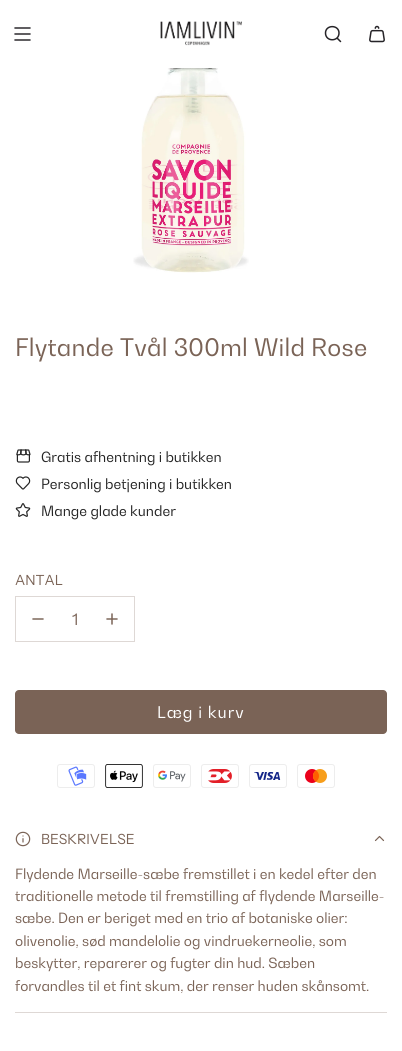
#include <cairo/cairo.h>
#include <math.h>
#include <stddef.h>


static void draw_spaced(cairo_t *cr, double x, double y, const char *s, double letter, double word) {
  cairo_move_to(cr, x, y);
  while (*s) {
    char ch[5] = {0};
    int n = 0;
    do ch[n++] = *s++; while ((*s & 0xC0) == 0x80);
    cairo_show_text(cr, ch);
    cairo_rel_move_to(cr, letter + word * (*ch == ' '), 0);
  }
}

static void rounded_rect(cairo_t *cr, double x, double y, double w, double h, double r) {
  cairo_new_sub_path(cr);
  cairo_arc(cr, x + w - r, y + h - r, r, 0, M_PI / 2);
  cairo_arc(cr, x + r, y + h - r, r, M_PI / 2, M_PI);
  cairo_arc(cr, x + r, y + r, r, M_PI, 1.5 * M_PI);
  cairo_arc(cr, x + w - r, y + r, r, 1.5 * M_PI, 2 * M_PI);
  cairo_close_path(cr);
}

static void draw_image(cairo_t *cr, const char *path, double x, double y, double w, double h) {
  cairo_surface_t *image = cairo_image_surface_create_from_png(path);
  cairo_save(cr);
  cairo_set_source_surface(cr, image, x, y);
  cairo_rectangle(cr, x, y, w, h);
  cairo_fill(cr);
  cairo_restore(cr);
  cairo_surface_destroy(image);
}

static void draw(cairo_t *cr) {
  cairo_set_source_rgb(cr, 1, 1, 1);
  cairo_paint(cr);
  cairo_new_path(cr);
  cairo_move_to(cr, 15, 28);
  cairo_line_to(cr, 30, 28);
  cairo_move_to(cr, 15, 34);
  cairo_line_to(cr, 30, 34);
  cairo_move_to(cr, 15, 40);
  cairo_line_to(cr, 30, 40);
  cairo_set_source_rgb(cr, 38 / 255.0, 36 / 255.0, 40 / 255.0);
  cairo_set_line_width(cr, 1.5);
  cairo_set_line_cap(cr, CAIRO_LINE_CAP_ROUND);
  cairo_set_line_join(cr, CAIRO_LINE_JOIN_ROUND);
  cairo_stroke(cr);
  draw_image(cr, "images/1.png", 160, 21, 82, 25);
  cairo_new_path(cr);
  cairo_move_to(cr, 337, 38);
  cairo_line_to(cr, 340.5, 41.5);
  cairo_move_to(cr, 325.5, 33);
  cairo_curve_to(cr, 325.5, 42, 339, 42, 339, 33);
  cairo_curve_to(cr, 339, 24.5, 325.5, 24.5, 325.5, 33);
  cairo_close_path(cr);
  cairo_stroke(cr);
  draw_image(cr, "images/2.png", 369, 25, 16, 18);
  draw_image(cr, "images/3.png", 133, 68, 116, 205);
  draw_image(cr, "images/4.png", 16, 449, 15, 14);
  draw_image(cr, "images/5.png", 15, 476, 16, 14);
  draw_image(cr, "images/6.png", 15, 503, 16, 14);
  cairo_rectangle(cr, 15.5, 596.5, 119, 45);
  cairo_set_source_rgb(cr, 222 / 255.0, 216 / 255.0, 213 / 255.0);
  cairo_set_line_width(cr, 1);
  cairo_set_line_cap(cr, CAIRO_LINE_CAP_BUTT);
  cairo_set_line_join(cr, CAIRO_LINE_JOIN_MITER);
  cairo_stroke(cr);
  cairo_new_path(cr);
  cairo_move_to(cr, 33, 619);
  cairo_line_to(cr, 43, 619);
  cairo_set_source_rgb(cr, 122 / 255.0, 99 / 255.0, 86 / 255.0);
  cairo_set_line_width(cr, 1.5);
  cairo_set_line_cap(cr, CAIRO_LINE_CAP_ROUND);
  cairo_set_line_join(cr, CAIRO_LINE_JOIN_ROUND);
  cairo_stroke(cr);
  draw_image(cr, "images/7.png", 106, 613, 12, 12);
  rounded_rect(cr, 15, 690, 372, 44, 4);
  cairo_fill(cr);
  draw_image(cr, "images/8.png", 57, 764, 38, 24);
  draw_image(cr, "images/9.png", 105, 764, 38, 24);
  draw_image(cr, "images/10.png", 153, 764, 38, 24);
  draw_image(cr, "images/11.png", 201, 764, 38, 24);
  draw_image(cr, "images/12.png", 249, 764, 38, 24);
  draw_image(cr, "images/13.png", 297, 764, 38, 24);
  cairo_set_source_rgb(cr, 222 / 255.0, 216 / 255.0, 213 / 255.0);
  cairo_rectangle(cr, 15, 1012, 372, 1);
  cairo_fill(cr);
  draw_image(cr, "images/14.png", 15, 831, 16, 16);
  cairo_new_path(cr);
  cairo_move_to(cr, 375.5, 840.5);
  cairo_line_to(cr, 379.5, 836.5);
  cairo_line_to(cr, 383.5, 840.5);
  cairo_set_source_rgb(cr, 122 / 255.0, 99 / 255.0, 86 / 255.0);
  cairo_set_line_width(cr, 1.2);
  cairo_stroke(cr);
  cairo_select_font_face(cr, "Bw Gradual", CAIRO_FONT_SLANT_NORMAL, CAIRO_FONT_WEIGHT_NORMAL);
  cairo_set_font_size(cr, 24);
  draw_spaced(cr, 15, 356, "Flytande Tvål 300ml Wild Rose", 0.25, 0);
  cairo_set_font_size(cr, 14);
  cairo_set_source_rgb(cr, 36 / 255.0, 36 / 255.0, 36 / 255.0);
  cairo_move_to(cr, 41, 462);
  cairo_show_text(cr, "Gratis afhentning i butikken");
  cairo_move_to(cr, 41, 489);
  cairo_show_text(cr, "Personlig betjening i butikken");
  cairo_move_to(cr, 41, 516);
  cairo_show_text(cr, "Mange glade kunder");
  cairo_select_font_face(cr, "Instrument Sans", CAIRO_FONT_SLANT_NORMAL, CAIRO_FONT_WEIGHT_NORMAL);
  cairo_set_source_rgb(cr, 122 / 255.0, 99 / 255.0, 86 / 255.0);
  cairo_move_to(cr, 15, 585);
  cairo_show_text(cr, "ANTAL");
  cairo_set_font_size(cr, 16);
  cairo_move_to(cr, 72, 625);
  cairo_show_text(cr, "1");
  cairo_select_font_face(cr, "Bw Gradual", CAIRO_FONT_SLANT_NORMAL, CAIRO_FONT_WEIGHT_NORMAL);
  cairo_set_source_rgb(cr, 1, 1, 1);
  draw_spaced(cr, 157, 718, "Læg i kurv", 1, 0);
  cairo_select_font_face(cr, "Instrument Sans", CAIRO_FONT_SLANT_NORMAL, CAIRO_FONT_WEIGHT_NORMAL);
  cairo_set_font_size(cr, 14);
  cairo_set_source_rgb(cr, 122 / 255.0, 99 / 255.0, 86 / 255.0);
  cairo_move_to(cr, 41, 844);
  cairo_show_text(cr, "BESKRIVELSE");
  cairo_select_font_face(cr, "Bw Gradual", CAIRO_FONT_SLANT_NORMAL, CAIRO_FONT_WEIGHT_NORMAL);
  cairo_move_to(cr, 15, 879);
  cairo_show_text(cr, "Flydende Marseille-sæbe fremstillet i en kedel efter den");
  cairo_move_to(cr, 15, 901);
  cairo_show_text(cr, "traditionelle metode til fremstilling af flydende Marseille-");
  cairo_move_to(cr, 15, 923);
  cairo_show_text(cr, "sæbe. Den er beriget med en trio af botaniske olier:");
  cairo_move_to(cr, 15, 946);
  cairo_show_text(cr, "olivenolie, sød mandelolie og vindruekerneolie, som");
  cairo_move_to(cr, 15, 968);
  cairo_show_text(cr, "beskytter, reparerer og fugter din hud. Sæben");
  cairo_move_to(cr, 15, 991);
  cairo_show_text(cr, "forvandles til et fint skum, der renser huden skånsomt.");
}

int main(void) {
  cairo_surface_t *surface = cairo_image_surface_create(CAIRO_FORMAT_RGB24, 402, 1051);
  cairo_t *cr = cairo_create(surface);
  cairo_font_options_t *options = cairo_font_options_create();
  cairo_font_options_set_hint_metrics(options, CAIRO_HINT_METRICS_OFF);
  cairo_font_options_set_hint_style(options, CAIRO_HINT_STYLE_NONE);
  cairo_set_font_options(cr, options);
  cairo_set_miter_limit(cr, 4);
  draw(cr);
  cairo_surface_write_to_png(surface, "out.png");
  cairo_font_options_destroy(options);
  cairo_destroy(cr);
  cairo_surface_destroy(surface);
  return 0;
}
